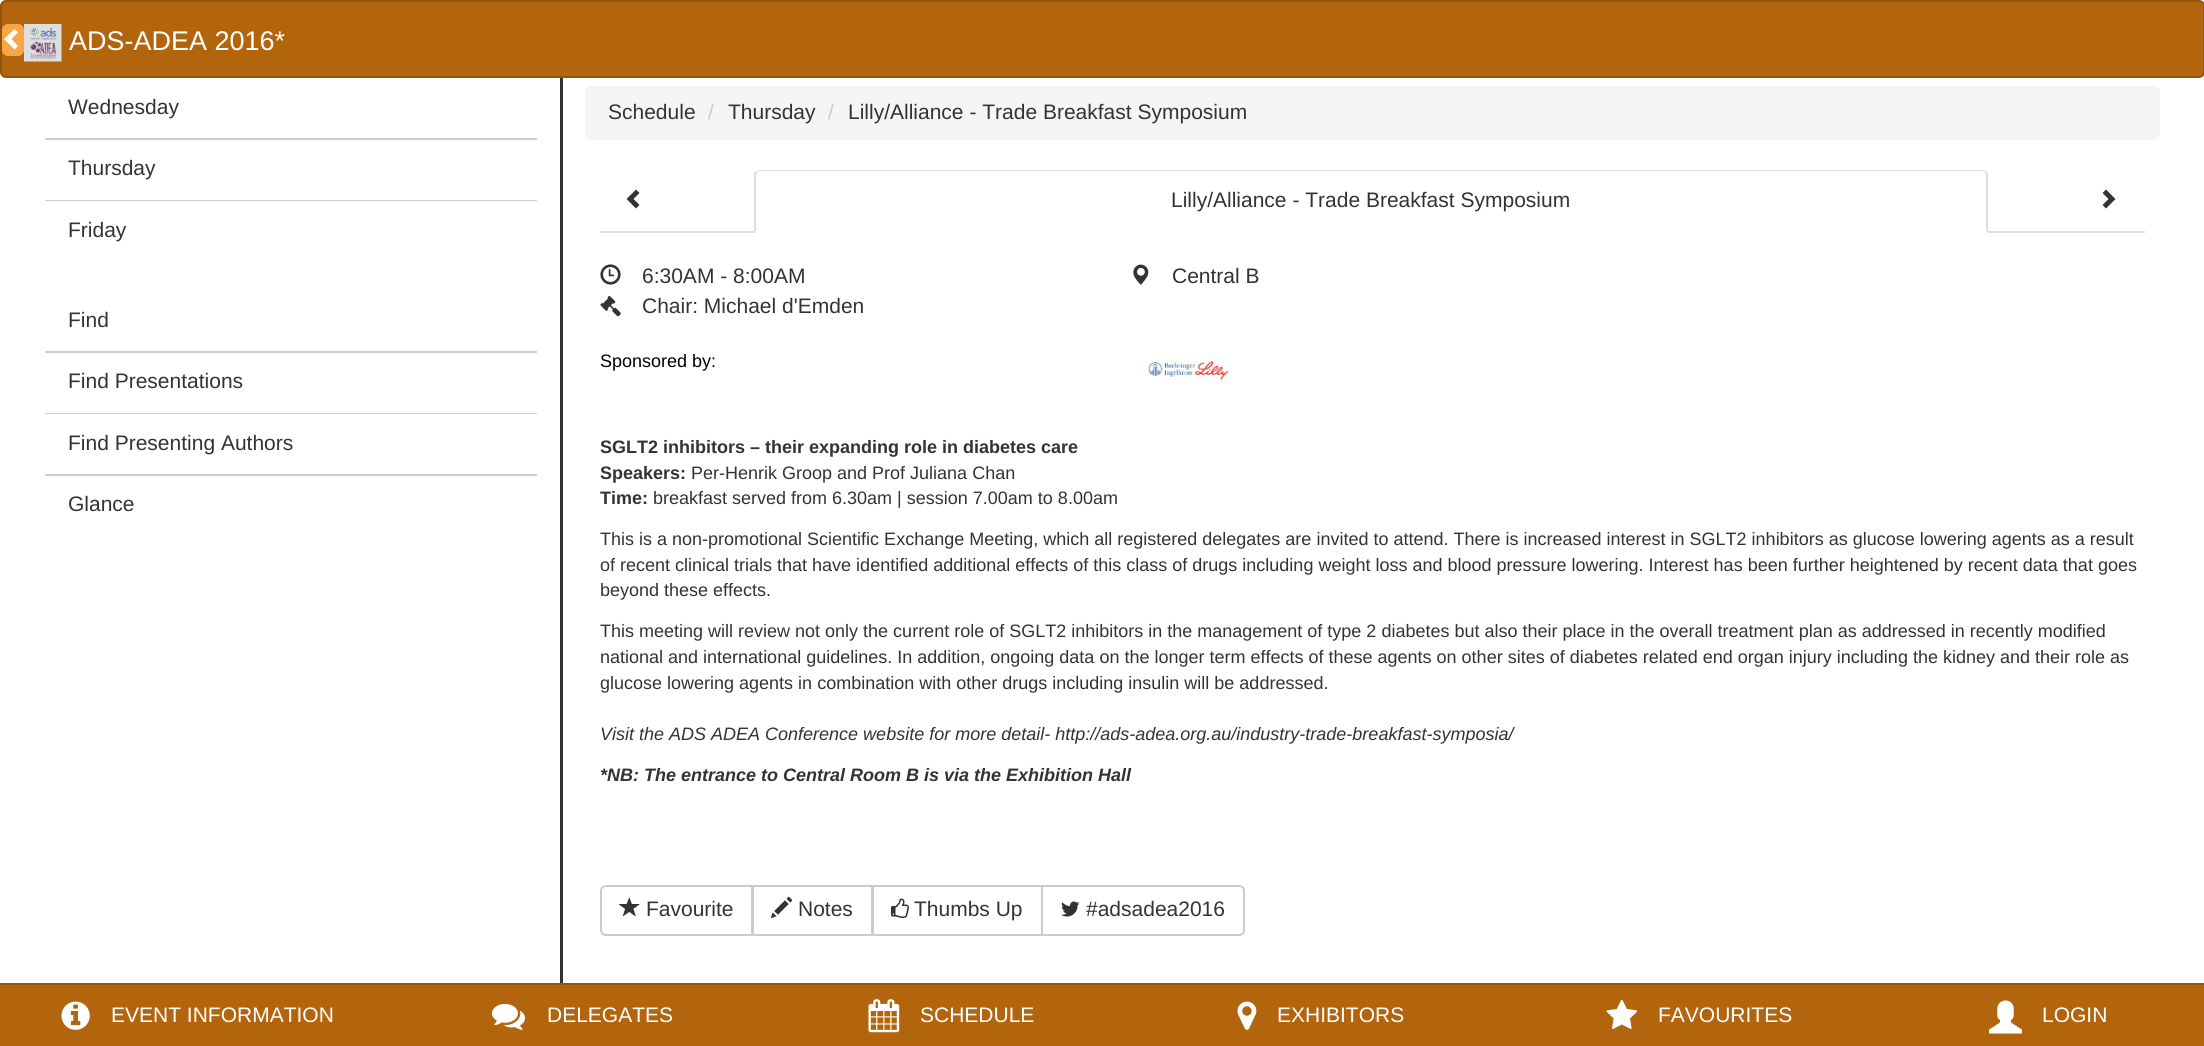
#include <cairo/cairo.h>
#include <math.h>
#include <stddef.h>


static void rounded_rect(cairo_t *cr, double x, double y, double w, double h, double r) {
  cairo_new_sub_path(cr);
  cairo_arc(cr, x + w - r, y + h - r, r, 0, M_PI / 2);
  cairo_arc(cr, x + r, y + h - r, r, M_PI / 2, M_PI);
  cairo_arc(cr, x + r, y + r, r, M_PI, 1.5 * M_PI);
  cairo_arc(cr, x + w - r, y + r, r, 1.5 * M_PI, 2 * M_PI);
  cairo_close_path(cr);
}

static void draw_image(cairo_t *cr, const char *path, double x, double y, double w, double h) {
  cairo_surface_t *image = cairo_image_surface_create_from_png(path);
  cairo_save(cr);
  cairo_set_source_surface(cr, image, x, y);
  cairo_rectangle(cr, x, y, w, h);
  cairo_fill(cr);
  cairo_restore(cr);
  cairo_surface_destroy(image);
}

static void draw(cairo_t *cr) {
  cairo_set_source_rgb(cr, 1, 1, 1);
  cairo_paint(cr);
  cairo_set_source_rgb(cr, 178 / 255.0, 101 / 255.0, 12 / 255.0);
  rounded_rect(cr, 1, 1, 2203, 76, 5);
  cairo_fill_preserve(cr);
  cairo_set_source_rgb(cr, 147 / 255.0, 83 / 255.0, 10 / 255.0);
  cairo_stroke(cr);
  cairo_set_source_rgb(cr, 246 / 255.0, 165 / 255.0, 72 / 255.0);
  rounded_rect(cr, 2, 24, 22, 32, 6);
  cairo_fill(cr);
  cairo_set_source_rgb(cr, 1, 1, 1);
  cairo_new_path(cr);
  cairo_move_to(cr, 18, 32.5);
  cairo_line_to(cr, 11.5, 39);
  cairo_line_to(cr, 18, 46);
  cairo_line_to(cr, 14.5, 49.5);
  cairo_line_to(cr, 4, 39);
  cairo_line_to(cr, 14.5, 29);
  cairo_close_path(cr);
  cairo_fill(cr);
  draw_image(cr, "images/1.png", 24, 24, 38, 38);
  cairo_set_source_rgb(cr, 51 / 255.0, 51 / 255.0, 51 / 255.0);
  cairo_rectangle(cr, 560, 78, 3, 905);
  cairo_fill(cr);
  cairo_set_source_rgb(cr, 204 / 255.0, 204 / 255.0, 204 / 255.0);
  cairo_rectangle(cr, 45, 138, 492, 2);
  cairo_fill(cr);
  cairo_rectangle(cr, 45, 200, 492, 1);
  cairo_fill(cr);
  cairo_rectangle(cr, 45, 351, 492, 2);
  cairo_fill(cr);
  cairo_rectangle(cr, 45, 413, 492, 1);
  cairo_fill(cr);
  cairo_rectangle(cr, 45, 474, 492, 2);
  cairo_fill(cr);
  cairo_set_source_rgb(cr, 245 / 255.0, 245 / 255.0, 245 / 255.0);
  rounded_rect(cr, 585, 86, 1575, 54, 6);
  cairo_fill(cr);
  cairo_set_source_rgb(cr, 221 / 255.0, 221 / 255.0, 221 / 255.0);
  cairo_rectangle(cr, 600, 231, 1545, 2);
  cairo_fill(cr);
  cairo_set_source_rgb(cr, 51 / 255.0, 51 / 255.0, 51 / 255.0);
  cairo_new_path(cr);
  cairo_move_to(cr, 639.5, 193);
  cairo_line_to(cr, 633.5, 199);
  cairo_line_to(cr, 639.5, 205);
  cairo_line_to(cr, 636, 208.5);
  cairo_line_to(cr, 626.5, 199);
  cairo_line_to(cr, 636, 189.5);
  cairo_close_path(cr);
  cairo_fill(cr);
  cairo_set_source_rgb(cr, 1, 1, 1);
  cairo_new_path(cr);
  cairo_move_to(cr, 761, 170);
  cairo_line_to(cr, 1982, 170);
  cairo_curve_to(cr, 1985.5, 170, 1988, 172.5, 1988, 176);
  cairo_line_to(cr, 1988, 233);
  cairo_line_to(cr, 755, 233);
  cairo_line_to(cr, 755, 176);
  cairo_curve_to(cr, 755, 172.5, 757.5, 170, 761, 170);
  cairo_close_path(cr);
  cairo_fill(cr);
  cairo_set_source_rgb(cr, 221 / 255.0, 221 / 255.0, 221 / 255.0);
  cairo_new_path(cr);
  cairo_move_to(cr, 760, 170);
  cairo_line_to(cr, 756, 171);
  cairo_line_to(cr, 757, 172);
  cairo_line_to(cr, 760, 171);
  cairo_line_to(cr, 1982, 171);
  cairo_line_to(cr, 1985, 172);
  cairo_line_to(cr, 1986, 171);
  cairo_line_to(cr, 1982, 170);
  cairo_close_path(cr);
  cairo_fill(cr);
  cairo_new_path(cr);
  cairo_move_to(cr, 1986, 171);
  cairo_line_to(cr, 1988, 173);
  cairo_line_to(cr, 1988, 232);
  cairo_line_to(cr, 1986, 231);
  cairo_line_to(cr, 1986, 176);
  cairo_curve_to(cr, 1986, 174, 1985, 173, 1985, 172);
  cairo_close_path(cr);
  cairo_fill(cr);
  cairo_new_path(cr);
  cairo_move_to(cr, 754, 173);
  cairo_line_to(cr, 756, 171);
  cairo_line_to(cr, 757, 172);
  cairo_curve_to(cr, 757, 173, 756, 174, 756, 176);
  cairo_line_to(cr, 756, 231);
  cairo_line_to(cr, 754, 232);
  cairo_close_path(cr);
  cairo_fill(cr);
  cairo_set_source_rgb(cr, 51 / 255.0, 51 / 255.0, 51 / 255.0);
  cairo_new_path(cr);
  cairo_move_to(cr, 2115.5, 199);
  cairo_line_to(cr, 2106, 208.5);
  cairo_line_to(cr, 2102.5, 205);
  cairo_line_to(cr, 2108.5, 199);
  cairo_line_to(cr, 2102.5, 193);
  cairo_line_to(cr, 2106, 189.5);
  cairo_close_path(cr);
  cairo_fill(cr);
  draw_image(cr, "images/2.png", 600, 264, 21, 21);
  draw_image(cr, "images/3.png", 1133, 264, 16, 21);
  draw_image(cr, "images/4.png", 600, 296, 21, 21);
  draw_image(cr, "images/5.png", 1148, 361, 81, 19);
  cairo_new_path(cr);
  cairo_move_to(cr, 606, 886);
  cairo_line_to(cr, 752, 886);
  cairo_line_to(cr, 752, 935);
  cairo_line_to(cr, 606, 935);
  cairo_curve_to(cr, 603, 935, 601, 933, 601, 930);
  cairo_line_to(cr, 601, 891);
  cairo_curve_to(cr, 601, 888, 603, 886, 606, 886);
  cairo_close_path(cr);
  cairo_set_source_rgb(cr, 204 / 255.0, 204 / 255.0, 204 / 255.0);
  cairo_stroke(cr);
  draw_image(cr, "images/6.png", 618, 897, 22, 20);
  cairo_rectangle(cr, 753, 886, 119, 49);
  cairo_stroke(cr);
  draw_image(cr, "images/7.png", 770, 896, 23, 23);
  cairo_rectangle(cr, 873, 886, 169, 49);
  cairo_stroke(cr);
  draw_image(cr, "images/8.png", 891, 898, 18, 20);
  cairo_set_source_rgb(cr, 1, 1, 1);
  cairo_new_path(cr);
  cairo_move_to(cr, 1042, 886);
  cairo_line_to(cr, 1239, 886);
  cairo_curve_to(cr, 1242, 886, 1244, 888, 1244, 891);
  cairo_line_to(cr, 1244, 930);
  cairo_curve_to(cr, 1244, 933, 1242, 935, 1239, 935);
  cairo_line_to(cr, 1042, 935);
  cairo_close_path(cr);
  cairo_fill_preserve(cr);
  cairo_set_source_rgb(cr, 204 / 255.0, 204 / 255.0, 204 / 255.0);
  cairo_stroke(cr);
  draw_image(cr, "images/9.png", 1061, 901, 19, 16);
  cairo_set_source_rgb(cr, 178 / 255.0, 101 / 255.0, 12 / 255.0);
  cairo_rectangle(cr, 0, 985, 2204, 61);
  cairo_fill(cr);
  cairo_set_source_rgb(cr, 147 / 255.0, 83 / 255.0, 10 / 255.0);
  cairo_rectangle(cr, 0, 983, 2204, 2);
  cairo_fill(cr);
  draw_image(cr, "images/10.png", 61, 1001, 29, 29);
  draw_image(cr, "images/11.png", 492, 1003, 33, 27);
  draw_image(cr, "images/12.png", 868, 999, 32, 34);
  draw_image(cr, "images/13.png", 1237, 1001, 20, 29);
  draw_image(cr, "images/14.png", 1606, 999, 32, 30);
  draw_image(cr, "images/15.png", 1989, 1000, 33, 34);
  cairo_select_font_face(cr, "Liberation Sans", CAIRO_FONT_SLANT_NORMAL, CAIRO_FONT_WEIGHT_NORMAL);
  cairo_set_font_size(cr, 27);
  cairo_set_source_rgb(cr, 1, 1, 1);
  cairo_move_to(cr, 69, 50);
  cairo_show_text(cr, "ADS-ADEA 2016*");
  cairo_set_font_size(cr, 21);
  cairo_set_source_rgb(cr, 51 / 255.0, 51 / 255.0, 51 / 255.0);
  cairo_move_to(cr, 68, 114);
  cairo_show_text(cr, "Wednesday");
  cairo_move_to(cr, 68, 175);
  cairo_show_text(cr, "Thursday");
  cairo_move_to(cr, 68, 237);
  cairo_show_text(cr, "Friday");
  cairo_move_to(cr, 68, 327);
  cairo_show_text(cr, "Find");
  cairo_move_to(cr, 68, 388);
  cairo_show_text(cr, "Find Presentations");
  cairo_move_to(cr, 68, 450);
  cairo_show_text(cr, "Find Presenting Authors");
  cairo_move_to(cr, 68, 511);
  cairo_show_text(cr, "Glance");
  cairo_move_to(cr, 608, 119);
  cairo_show_text(cr, "Schedule");
  cairo_set_source_rgb(cr, 204 / 255.0, 204 / 255.0, 204 / 255.0);
  cairo_move_to(cr, 708, 119);
  cairo_show_text(cr, "/");
  cairo_set_source_rgb(cr, 51 / 255.0, 51 / 255.0, 51 / 255.0);
  cairo_move_to(cr, 728, 119);
  cairo_show_text(cr, "Thursday");
  cairo_set_source_rgb(cr, 204 / 255.0, 204 / 255.0, 204 / 255.0);
  cairo_move_to(cr, 828, 119);
  cairo_show_text(cr, "/");
  cairo_set_source_rgb(cr, 51 / 255.0, 51 / 255.0, 51 / 255.0);
  cairo_move_to(cr, 848, 119);
  cairo_show_text(cr, "Lilly/Alliance - Trade Breakfast Symposium");
  cairo_move_to(cr, 1171, 207);
  cairo_show_text(cr, "Lilly/Alliance - Trade Breakfast Symposium");
  cairo_move_to(cr, 642, 283);
  cairo_show_text(cr, "6:30AM - 8:00AM");
  cairo_move_to(cr, 1172, 283);
  cairo_show_text(cr, "Central B");
  cairo_move_to(cr, 642, 313);
  cairo_show_text(cr, "Chair: Michael d'Emden");
  cairo_set_font_size(cr, 18);
  cairo_set_source_rgb(cr, 0, 0, 0);
  cairo_move_to(cr, 600, 367);
  cairo_show_text(cr, "Sponsored by:");
  cairo_select_font_face(cr, "Liberation Sans", CAIRO_FONT_SLANT_NORMAL, CAIRO_FONT_WEIGHT_BOLD);
  cairo_set_source_rgb(cr, 51 / 255.0, 51 / 255.0, 51 / 255.0);
  cairo_move_to(cr, 600, 453);
  cairo_show_text(cr, "SGLT2 inhibitors – their expanding role in diabetes care");
  cairo_move_to(cr, 600, 479);
  cairo_show_text(cr, "Speakers:");
  cairo_select_font_face(cr, "Liberation Sans", CAIRO_FONT_SLANT_NORMAL, CAIRO_FONT_WEIGHT_NORMAL);
  cairo_move_to(cr, 691, 479);
  cairo_show_text(cr, "Per-Henrik Groop and Prof Juliana Chan");
  cairo_select_font_face(cr, "Liberation Sans", CAIRO_FONT_SLANT_NORMAL, CAIRO_FONT_WEIGHT_BOLD);
  cairo_move_to(cr, 600, 504);
  cairo_show_text(cr, "Time:");
  cairo_select_font_face(cr, "Liberation Sans", CAIRO_FONT_SLANT_NORMAL, CAIRO_FONT_WEIGHT_NORMAL);
  cairo_move_to(cr, 653, 504);
  cairo_show_text(cr, "breakfast served from 6.30am | session 7.00am to 8.00am");
  cairo_move_to(cr, 600, 545);
  cairo_show_text(cr, "This is a non-promotional Scientific Exchange Meeting, which all registered delegates are invited to attend. There is increased interest in SGLT2 inhibitors as glucose lowering agents as a result");
  cairo_move_to(cr, 600, 571);
  cairo_show_text(cr, "of recent clinical trials that have identified additional effects of this class of drugs including weight loss and blood pressure lowering. Interest has been further heightened by recent data that goes");
  cairo_move_to(cr, 600, 596);
  cairo_show_text(cr, "beyond these effects.");
  cairo_move_to(cr, 600, 637);
  cairo_show_text(cr, "This meeting will review not only the current role of SGLT2 inhibitors in the management of type 2 diabetes but also their place in the overall treatment plan as addressed in recently modified");
  cairo_move_to(cr, 600, 663);
  cairo_show_text(cr, "national and international guidelines. In addition, ongoing data on the longer term effects of these agents on other sites of diabetes related end organ injury including the kidney and their role as");
  cairo_move_to(cr, 600, 689);
  cairo_show_text(cr, "glucose lowering agents in combination with other drugs including insulin will be addressed.");
  cairo_select_font_face(cr, "Liberation Sans", CAIRO_FONT_SLANT_ITALIC, CAIRO_FONT_WEIGHT_NORMAL);
  cairo_move_to(cr, 600, 740);
  cairo_show_text(cr, "Visit the ADS ADEA Conference website for more detail- http://ads-adea.org.au/industry-trade-breakfast-symposia/");
  cairo_select_font_face(cr, "Liberation Sans", CAIRO_FONT_SLANT_ITALIC, CAIRO_FONT_WEIGHT_BOLD);
  cairo_move_to(cr, 600, 781);
  cairo_show_text(cr, "*NB: The entrance to Central Room B is via the Exhibition Hall");
  cairo_select_font_face(cr, "Liberation Sans", CAIRO_FONT_SLANT_NORMAL, CAIRO_FONT_WEIGHT_NORMAL);
  cairo_set_font_size(cr, 21);
  cairo_move_to(cr, 646, 916);
  cairo_show_text(cr, "Favourite");
  cairo_move_to(cr, 798, 916);
  cairo_show_text(cr, "Notes");
  cairo_move_to(cr, 914, 916);
  cairo_show_text(cr, "Thumbs Up");
  cairo_move_to(cr, 1086, 916);
  cairo_show_text(cr, "#adsadea2016");
  cairo_set_source_rgb(cr, 1, 1, 1);
  cairo_move_to(cr, 111, 1022);
  cairo_show_text(cr, "EVENT INFORMATION");
  cairo_move_to(cr, 547, 1022);
  cairo_show_text(cr, "DELEGATES");
  cairo_move_to(cr, 920, 1022);
  cairo_show_text(cr, "SCHEDULE");
  cairo_move_to(cr, 1277, 1022);
  cairo_show_text(cr, "EXHIBITORS");
  cairo_move_to(cr, 1658, 1022);
  cairo_show_text(cr, "FAVOURITES");
  cairo_move_to(cr, 2042, 1022);
  cairo_show_text(cr, "LOGIN");
}

int main(void) {
  cairo_surface_t *surface = cairo_image_surface_create(CAIRO_FORMAT_RGB24, 2204, 1046);
  cairo_t *cr = cairo_create(surface);
  cairo_font_options_t *options = cairo_font_options_create();
  cairo_font_options_set_hint_metrics(options, CAIRO_HINT_METRICS_OFF);
  cairo_font_options_set_hint_style(options, CAIRO_HINT_STYLE_NONE);
  cairo_set_font_options(cr, options);
  cairo_set_miter_limit(cr, 4);
  draw(cr);
  cairo_surface_write_to_png(surface, "out.png");
  cairo_font_options_destroy(options);
  cairo_destroy(cr);
  cairo_surface_destroy(surface);
  return 0;
}
